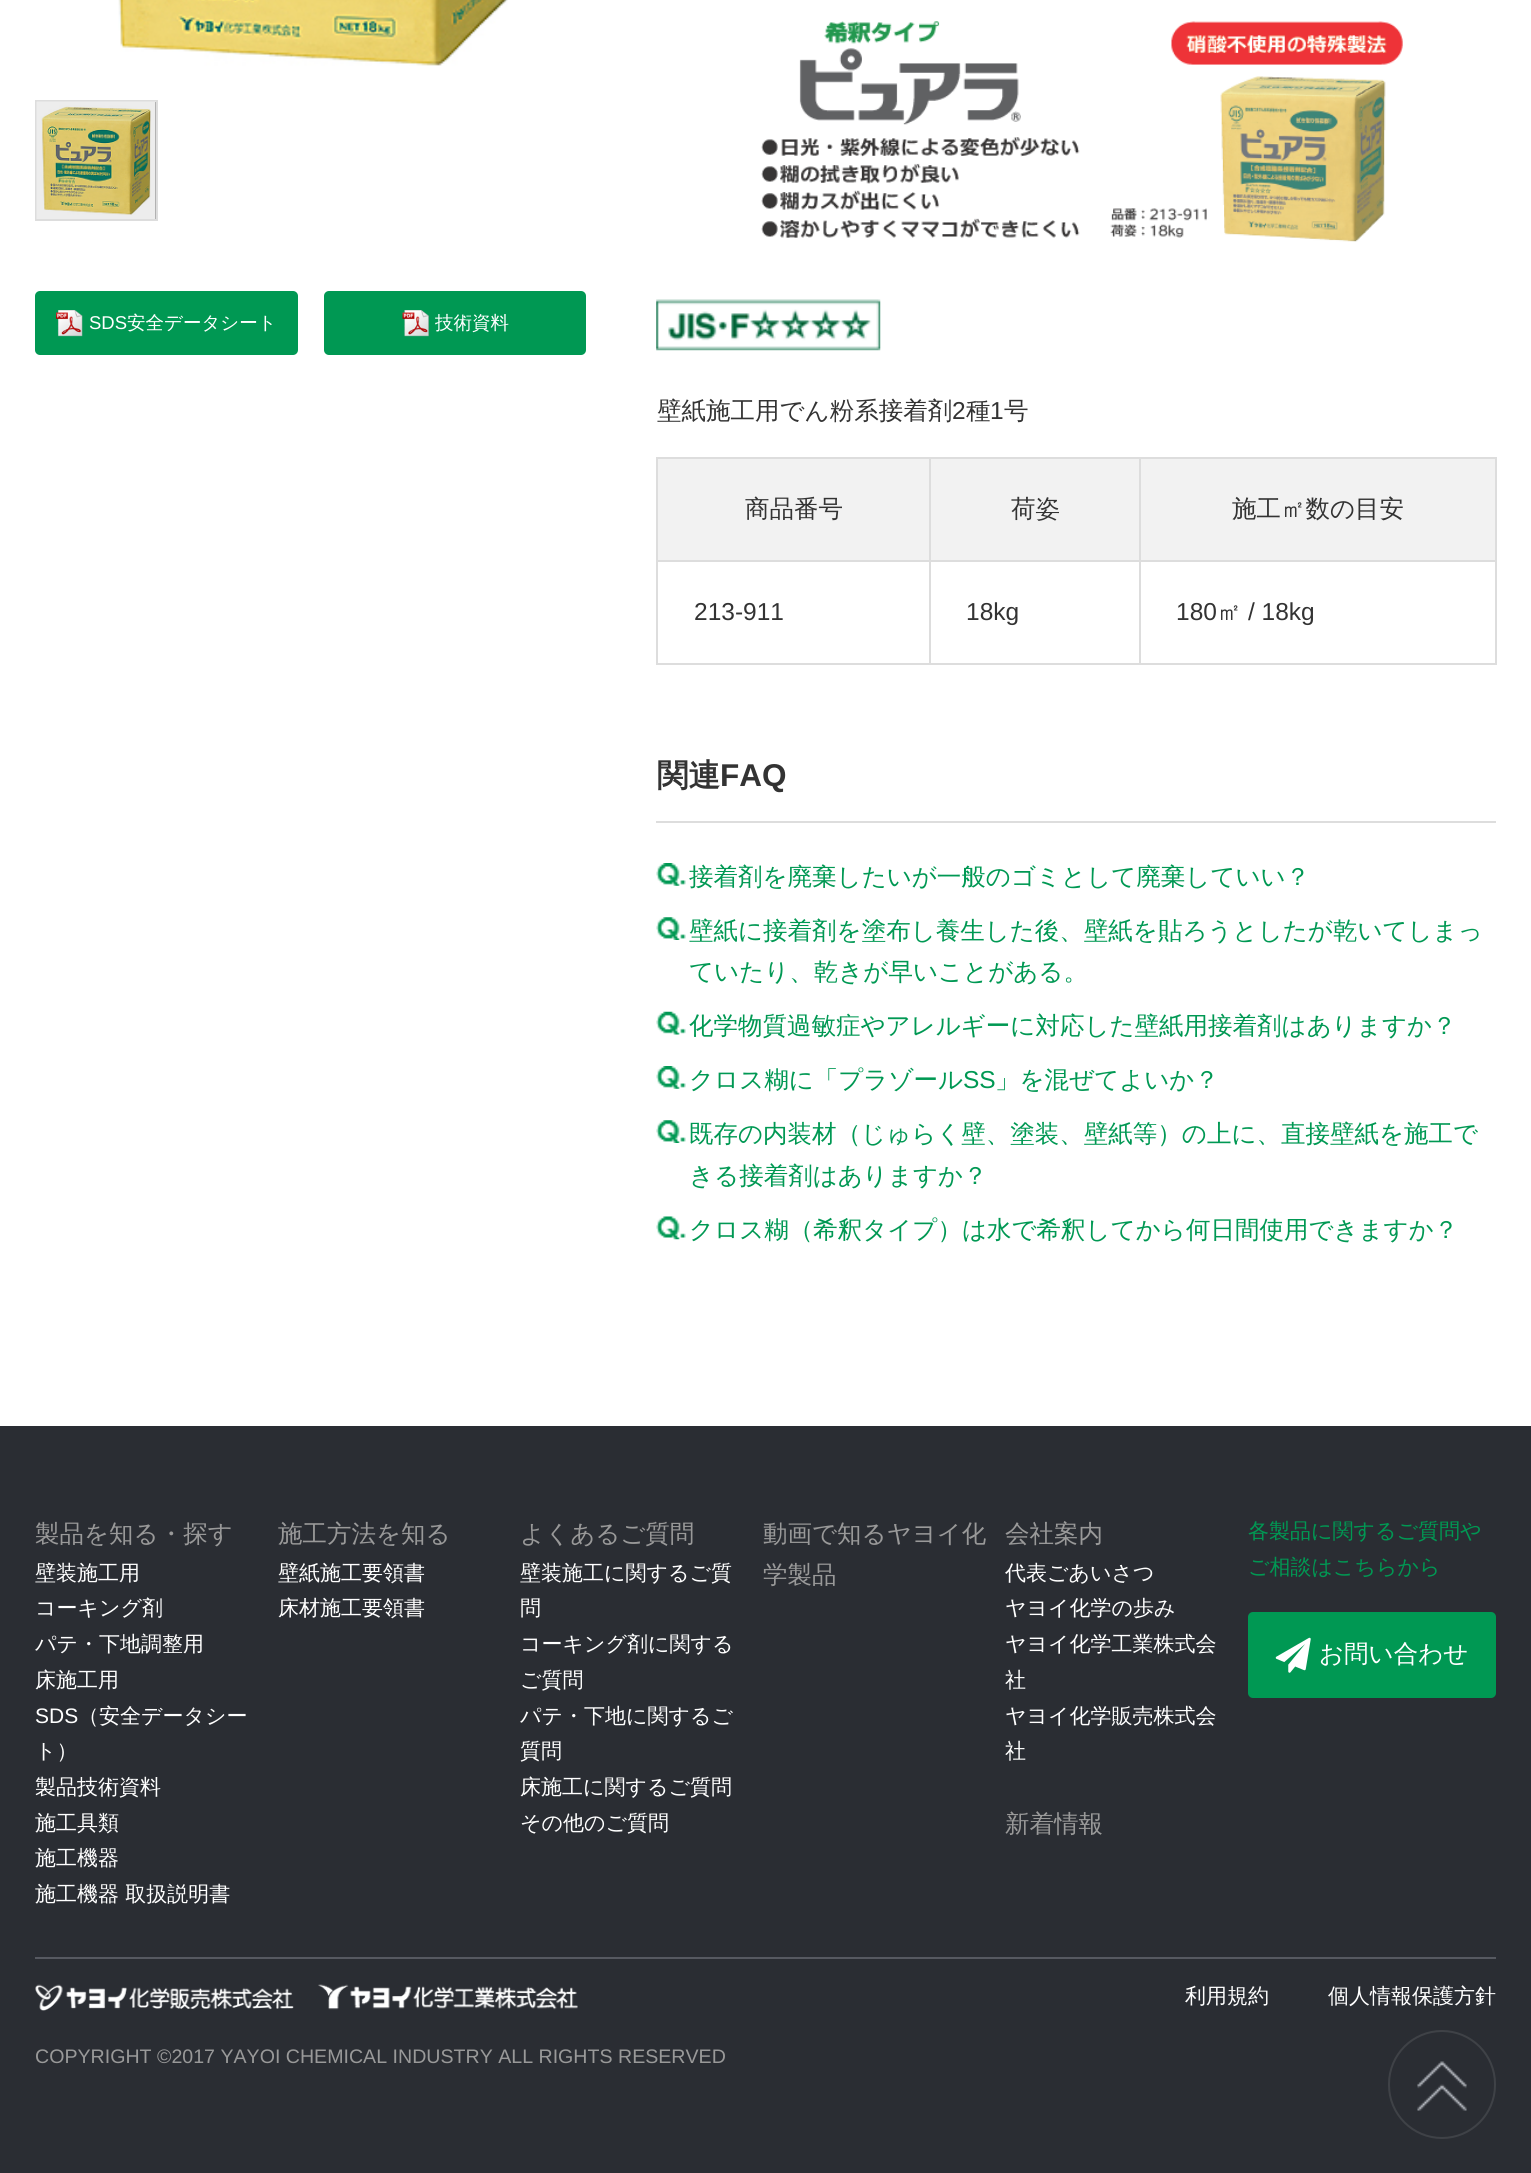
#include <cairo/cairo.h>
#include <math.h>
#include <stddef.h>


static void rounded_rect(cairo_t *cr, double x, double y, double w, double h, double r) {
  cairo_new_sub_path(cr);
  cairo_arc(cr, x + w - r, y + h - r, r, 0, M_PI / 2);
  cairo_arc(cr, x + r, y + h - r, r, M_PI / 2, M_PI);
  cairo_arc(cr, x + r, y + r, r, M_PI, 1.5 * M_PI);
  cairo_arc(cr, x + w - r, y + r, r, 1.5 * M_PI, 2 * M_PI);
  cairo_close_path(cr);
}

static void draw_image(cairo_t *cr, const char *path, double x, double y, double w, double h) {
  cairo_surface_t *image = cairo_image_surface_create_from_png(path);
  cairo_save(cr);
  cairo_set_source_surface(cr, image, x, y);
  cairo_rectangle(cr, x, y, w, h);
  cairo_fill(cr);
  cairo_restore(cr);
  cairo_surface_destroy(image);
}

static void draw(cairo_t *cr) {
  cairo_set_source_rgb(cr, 1, 1, 1);
  cairo_paint(cr);
  draw_image(cr, "images/1.png", 118, 0, 390, 66);
  cairo_rectangle(cr, 36, 101, 121, 119);
  cairo_set_source_rgb(cr, 221 / 255.0, 221 / 255.0, 221 / 255.0);
  cairo_stroke(cr);
  cairo_set_source_rgb(cr, 0, 0, 0);
  cairo_rectangle(cr, 37, 102, 119, 117);
  cairo_fill(cr);
  draw_image(cr, "images/2.png", 36, 101, 120, 118);
  cairo_set_source_rgb(cr, 0, 152 / 255.0, 83 / 255.0);
  rounded_rect(cr, 35, 291, 263, 64, 5);
  cairo_fill(cr);
  draw_image(cr, "images/3.png", 56, 310, 27, 27);
  rounded_rect(cr, 324, 291, 262, 64, 5);
  cairo_fill(cr);
  draw_image(cr, "images/4.png", 402, 310, 27, 27);
  draw_image(cr, "images/5.png", 761, 21, 642, 221);
  draw_image(cr, "images/6.png", 656, 299, 225, 52);
  cairo_set_source_rgb(cr, 221 / 255.0, 221 / 255.0, 221 / 255.0);
  cairo_rectangle(cr, 656, 457, 840, 2);
  cairo_fill(cr);
  cairo_rectangle(cr, 1495, 457, 2, 208);
  cairo_fill(cr);
  cairo_rectangle(cr, 656, 663, 840, 2);
  cairo_fill(cr);
  cairo_rectangle(cr, 656, 457, 2, 208);
  cairo_fill(cr);
  cairo_set_source_rgb(cr, 242 / 255.0, 242 / 255.0, 242 / 255.0);
  cairo_rectangle(cr, 658, 459, 271, 101);
  cairo_fill(cr);
  cairo_rectangle(cr, 931, 459, 208, 101);
  cairo_fill(cr);
  cairo_rectangle(cr, 1141, 459, 354, 101);
  cairo_fill(cr);
  cairo_set_source_rgb(cr, 221 / 255.0, 221 / 255.0, 221 / 255.0);
  cairo_rectangle(cr, 656, 560, 840, 2);
  cairo_fill(cr);
  cairo_rectangle(cr, 929, 457, 2, 208);
  cairo_fill(cr);
  cairo_rectangle(cr, 1139, 457, 2, 208);
  cairo_fill(cr);
  cairo_rectangle(cr, 656, 821, 840, 2);
  cairo_fill(cr);
  draw_image(cr, "images/7.png", 656, 863, 30, 23);
  draw_image(cr, "images/8.png", 656, 917, 30, 23);
  draw_image(cr, "images/9.png", 656, 1011, 30, 24);
  draw_image(cr, "images/10.png", 656, 1066, 30, 23);
  draw_image(cr, "images/8.png", 656, 1120, 30, 23);
  draw_image(cr, "images/11.png", 656, 1216, 30, 24);
  cairo_set_source_rgb(cr, 42 / 255.0, 45 / 255.0, 51 / 255.0);
  cairo_rectangle(cr, 0, 1426, 1531, 747);
  cairo_fill(cr);
  cairo_set_source_rgb(cr, 0, 152 / 255.0, 83 / 255.0);
  rounded_rect(cr, 1248, 1612, 248, 86, 5);
  cairo_fill(cr);
  draw_image(cr, "images/12.png", 1275, 1637, 36, 36);
  cairo_set_source_rgb(cr, 86 / 255.0, 89 / 255.0, 97 / 255.0);
  cairo_rectangle(cr, 35, 1957, 1461, 2);
  cairo_fill(cr);
  draw_image(cr, "images/13.png", 35, 1984, 259, 27);
  draw_image(cr, "images/14.png", 318, 1984, 260, 26);
  rounded_rect(cr, 1389, 2031, 106, 107, 53);
  cairo_set_source_rgb(cr, 63 / 255.0, 66 / 255.0, 71 / 255.0);
  cairo_stroke(cr);
  draw_image(cr, "images/15.png", 1417, 2061, 50, 50);
  cairo_select_font_face(cr, "Liberation Sans", CAIRO_FONT_SLANT_NORMAL, CAIRO_FONT_WEIGHT_NORMAL);
  cairo_set_font_size(cr, 18.5);
  cairo_set_source_rgb(cr, 1, 1, 1);
  cairo_move_to(cr, 89, 329);
  cairo_show_text(cr, "SDS");
  cairo_select_font_face(cr, "WenQuanYi Zen Hei Medium", CAIRO_FONT_SLANT_NORMAL, CAIRO_FONT_WEIGHT_NORMAL);
  cairo_move_to(cr, 127, 329);
  cairo_show_text(cr, "安全データシート");
  cairo_move_to(cr, 435, 329);
  cairo_show_text(cr, "技術資料");
  cairo_set_font_size(cr, 24.5);
  cairo_set_source_rgb(cr, 51 / 255.0, 51 / 255.0, 51 / 255.0);
  cairo_move_to(cr, 657, 419);
  cairo_show_text(cr, "壁紙施工用でん粉系接着剤");
  cairo_select_font_face(cr, "Liberation Sans", CAIRO_FONT_SLANT_NORMAL, CAIRO_FONT_WEIGHT_NORMAL);
  cairo_move_to(cr, 952, 419);
  cairo_show_text(cr, "2");
  cairo_select_font_face(cr, "WenQuanYi Zen Hei Medium", CAIRO_FONT_SLANT_NORMAL, CAIRO_FONT_WEIGHT_NORMAL);
  cairo_move_to(cr, 966, 419);
  cairo_show_text(cr, "種");
  cairo_select_font_face(cr, "Liberation Sans", CAIRO_FONT_SLANT_NORMAL, CAIRO_FONT_WEIGHT_NORMAL);
  cairo_move_to(cr, 990, 419);
  cairo_show_text(cr, "1");
  cairo_select_font_face(cr, "WenQuanYi Zen Hei Medium", CAIRO_FONT_SLANT_NORMAL, CAIRO_FONT_WEIGHT_NORMAL);
  cairo_move_to(cr, 1004, 419);
  cairo_show_text(cr, "号");
  cairo_move_to(cr, 745, 517);
  cairo_show_text(cr, "商品番号");
  cairo_move_to(cr, 1011, 517);
  cairo_show_text(cr, "荷姿");
  cairo_move_to(cr, 1232, 517);
  cairo_show_text(cr, "施工㎡数の目安");
  cairo_select_font_face(cr, "Liberation Sans", CAIRO_FONT_SLANT_NORMAL, CAIRO_FONT_WEIGHT_NORMAL);
  cairo_move_to(cr, 694, 620);
  cairo_show_text(cr, "213-911");
  cairo_move_to(cr, 966, 620);
  cairo_show_text(cr, "18kg");
  cairo_move_to(cr, 1176, 620);
  cairo_show_text(cr, "180");
  cairo_select_font_face(cr, "WenQuanYi Zen Hei Medium", CAIRO_FONT_SLANT_NORMAL, CAIRO_FONT_WEIGHT_NORMAL);
  cairo_move_to(cr, 1217, 620);
  cairo_show_text(cr, "㎡");
  cairo_select_font_face(cr, "Liberation Sans", CAIRO_FONT_SLANT_NORMAL, CAIRO_FONT_WEIGHT_NORMAL);
  cairo_move_to(cr, 1248, 620);
  cairo_show_text(cr, "/ 18kg");
  cairo_select_font_face(cr, "WenQuanYi Zen Hei", CAIRO_FONT_SLANT_NORMAL, CAIRO_FONT_WEIGHT_BOLD);
  cairo_set_font_size(cr, 31.5);
  cairo_move_to(cr, 657, 786);
  cairo_show_text(cr, "関連");
  cairo_select_font_face(cr, "Liberation Sans", CAIRO_FONT_SLANT_NORMAL, CAIRO_FONT_WEIGHT_BOLD);
  cairo_move_to(cr, 720, 786);
  cairo_show_text(cr, "FAQ");
  cairo_select_font_face(cr, "WenQuanYi Zen Hei Medium", CAIRO_FONT_SLANT_NORMAL, CAIRO_FONT_WEIGHT_NORMAL);
  cairo_set_font_size(cr, 24.5);
  cairo_set_source_rgb(cr, 0, 152 / 255.0, 83 / 255.0);
  cairo_move_to(cr, 689, 885);
  cairo_show_text(cr, "接着剤を廃棄したいが一般のゴミとして廃棄していい？");
  cairo_move_to(cr, 689, 939);
  cairo_show_text(cr, "壁紙に接着剤を塗布し養生した後、壁紙を貼ろうとしたが乾いてしまっ");
  cairo_move_to(cr, 689, 980);
  cairo_show_text(cr, "ていたり、乾きが早いことがある。");
  cairo_move_to(cr, 689, 1034);
  cairo_show_text(cr, "化学物質過敏症やアレルギーに対応した壁紙用接着剤はありますか？");
  cairo_move_to(cr, 689, 1088);
  cairo_show_text(cr, "クロス糊に「プラゾール");
  cairo_select_font_face(cr, "Liberation Sans", CAIRO_FONT_SLANT_NORMAL, CAIRO_FONT_WEIGHT_NORMAL);
  cairo_move_to(cr, 963, 1088);
  cairo_show_text(cr, "SS");
  cairo_select_font_face(cr, "WenQuanYi Zen Hei Medium", CAIRO_FONT_SLANT_NORMAL, CAIRO_FONT_WEIGHT_NORMAL);
  cairo_move_to(cr, 995, 1088);
  cairo_show_text(cr, "」を混ぜてよいか？");
  cairo_move_to(cr, 689, 1142);
  cairo_show_text(cr, "既存の内装材（じゅらく壁、塗装、壁紙等）の上に、直接壁紙を施工で");
  cairo_move_to(cr, 689, 1184);
  cairo_show_text(cr, "きる接着剤はありますか？");
  cairo_move_to(cr, 689, 1238);
  cairo_show_text(cr, "クロス糊（希釈タイプ）は水で希釈してから何日間使用できますか？");
  cairo_set_source_rgb(cr, 153 / 255.0, 153 / 255.0, 153 / 255.0);
  cairo_move_to(cr, 35, 1542);
  cairo_show_text(cr, "製品を知る・探す");
  cairo_set_font_size(cr, 21);
  cairo_set_source_rgb(cr, 1, 1, 1);
  cairo_move_to(cr, 35, 1580);
  cairo_show_text(cr, "壁装施工用");
  cairo_move_to(cr, 35, 1615);
  cairo_show_text(cr, "コーキング剤");
  cairo_move_to(cr, 35, 1651);
  cairo_show_text(cr, "パテ・下地調整用");
  cairo_move_to(cr, 35, 1687);
  cairo_show_text(cr, "床施工用");
  cairo_select_font_face(cr, "Liberation Sans", CAIRO_FONT_SLANT_NORMAL, CAIRO_FONT_WEIGHT_NORMAL);
  cairo_move_to(cr, 35, 1723);
  cairo_show_text(cr, "SDS");
  cairo_select_font_face(cr, "WenQuanYi Zen Hei Medium", CAIRO_FONT_SLANT_NORMAL, CAIRO_FONT_WEIGHT_NORMAL);
  cairo_move_to(cr, 78, 1723);
  cairo_show_text(cr, "（安全データシー");
  cairo_move_to(cr, 35, 1758);
  cairo_show_text(cr, "ト）");
  cairo_move_to(cr, 35, 1794);
  cairo_show_text(cr, "製品技術資料");
  cairo_move_to(cr, 35, 1830);
  cairo_show_text(cr, "施工具類");
  cairo_move_to(cr, 35, 1865);
  cairo_show_text(cr, "施工機器");
  cairo_move_to(cr, 35, 1901);
  cairo_show_text(cr, "施工機器 取扱説明書");
  cairo_set_font_size(cr, 24.5);
  cairo_set_source_rgb(cr, 153 / 255.0, 153 / 255.0, 153 / 255.0);
  cairo_move_to(cr, 278, 1542);
  cairo_show_text(cr, "施工方法を知る");
  cairo_set_font_size(cr, 21);
  cairo_set_source_rgb(cr, 1, 1, 1);
  cairo_move_to(cr, 278, 1580);
  cairo_show_text(cr, "壁紙施工要領書");
  cairo_move_to(cr, 278, 1615);
  cairo_show_text(cr, "床材施工要領書");
  cairo_set_font_size(cr, 24.5);
  cairo_set_source_rgb(cr, 153 / 255.0, 153 / 255.0, 153 / 255.0);
  cairo_move_to(cr, 520, 1542);
  cairo_show_text(cr, "よくあるご質問");
  cairo_set_font_size(cr, 21);
  cairo_set_source_rgb(cr, 1, 1, 1);
  cairo_move_to(cr, 520, 1580);
  cairo_show_text(cr, "壁装施工に関するご質");
  cairo_move_to(cr, 520, 1615);
  cairo_show_text(cr, "問");
  cairo_move_to(cr, 520, 1651);
  cairo_show_text(cr, "コーキング剤に関する");
  cairo_move_to(cr, 520, 1687);
  cairo_show_text(cr, "ご質問");
  cairo_move_to(cr, 520, 1723);
  cairo_show_text(cr, "パテ・下地に関するご");
  cairo_move_to(cr, 520, 1758);
  cairo_show_text(cr, "質問");
  cairo_move_to(cr, 520, 1794);
  cairo_show_text(cr, "床施工に関するご質問");
  cairo_move_to(cr, 520, 1830);
  cairo_show_text(cr, "その他のご質問");
  cairo_set_font_size(cr, 24.5);
  cairo_set_source_rgb(cr, 153 / 255.0, 153 / 255.0, 153 / 255.0);
  cairo_move_to(cr, 763, 1542);
  cairo_show_text(cr, "動画で知るヤヨイ化");
  cairo_move_to(cr, 763, 1583);
  cairo_show_text(cr, "学製品");
  cairo_move_to(cr, 1005, 1542);
  cairo_show_text(cr, "会社案内");
  cairo_set_font_size(cr, 21);
  cairo_set_source_rgb(cr, 1, 1, 1);
  cairo_move_to(cr, 1005, 1580);
  cairo_show_text(cr, "代表ごあいさつ");
  cairo_move_to(cr, 1005, 1615);
  cairo_show_text(cr, "ヤヨイ化学の歩み");
  cairo_move_to(cr, 1005, 1651);
  cairo_show_text(cr, "ヤヨイ化学工業株式会");
  cairo_move_to(cr, 1005, 1687);
  cairo_show_text(cr, "社");
  cairo_move_to(cr, 1005, 1723);
  cairo_show_text(cr, "ヤヨイ化学販売株式会");
  cairo_move_to(cr, 1005, 1758);
  cairo_show_text(cr, "社");
  cairo_set_font_size(cr, 24.5);
  cairo_set_source_rgb(cr, 153 / 255.0, 153 / 255.0, 153 / 255.0);
  cairo_move_to(cr, 1005, 1832);
  cairo_show_text(cr, "新着情報");
  cairo_set_font_size(cr, 21);
  cairo_set_source_rgb(cr, 0, 152 / 255.0, 83 / 255.0);
  cairo_move_to(cr, 1248, 1538);
  cairo_show_text(cr, "各製品に関するご質問や");
  cairo_move_to(cr, 1248, 1574);
  cairo_show_text(cr, "ご相談はこちらから");
  cairo_set_font_size(cr, 24.5);
  cairo_set_source_rgb(cr, 1, 1, 1);
  cairo_move_to(cr, 1319, 1662);
  cairo_show_text(cr, "お問い合わせ");
  cairo_set_font_size(cr, 21);
  cairo_move_to(cr, 1185, 2003);
  cairo_show_text(cr, "利用規約");
  cairo_move_to(cr, 1328, 2003);
  cairo_show_text(cr, "個人情報保護方針");
  cairo_select_font_face(cr, "Liberation Sans", CAIRO_FONT_SLANT_NORMAL, CAIRO_FONT_WEIGHT_NORMAL);
  cairo_set_font_size(cr, 19.6);
  cairo_set_source_rgb(cr, 153 / 255.0, 153 / 255.0, 153 / 255.0);
  cairo_move_to(cr, 35, 2063);
  cairo_show_text(cr, "COPYRIGHT ©2017 YAYOI CHEMICAL INDUSTRY ALL RIGHTS RESERVED");
}

int main(void) {
  cairo_surface_t *surface = cairo_image_surface_create(CAIRO_FORMAT_RGB24, 1531, 2173);
  cairo_t *cr = cairo_create(surface);
  cairo_font_options_t *options = cairo_font_options_create();
  cairo_font_options_set_hint_metrics(options, CAIRO_HINT_METRICS_OFF);
  cairo_font_options_set_hint_style(options, CAIRO_HINT_STYLE_NONE);
  cairo_set_font_options(cr, options);
  cairo_set_miter_limit(cr, 4);
  draw(cr);
  cairo_surface_write_to_png(surface, "out.png");
  cairo_font_options_destroy(options);
  cairo_destroy(cr);
  cairo_surface_destroy(surface);
  return 0;
}
